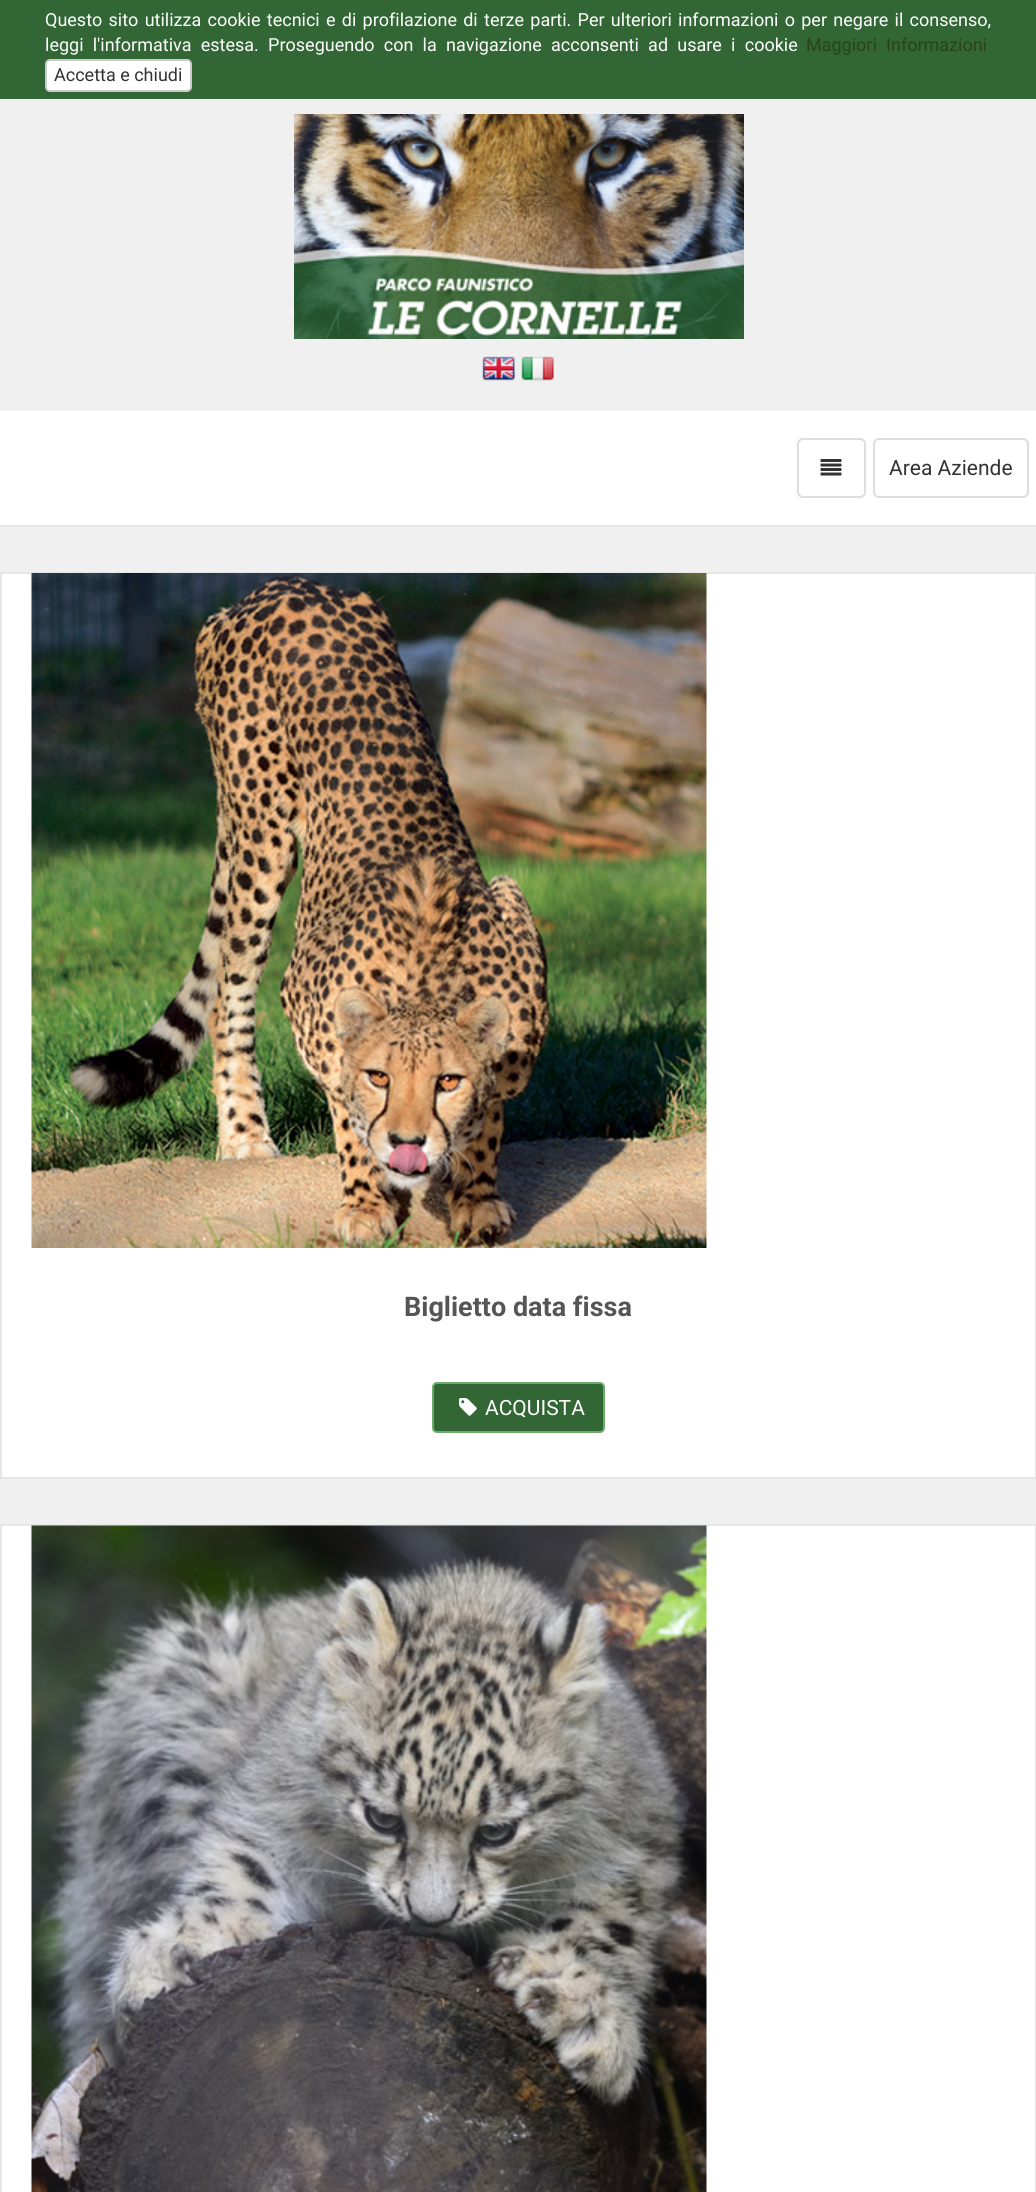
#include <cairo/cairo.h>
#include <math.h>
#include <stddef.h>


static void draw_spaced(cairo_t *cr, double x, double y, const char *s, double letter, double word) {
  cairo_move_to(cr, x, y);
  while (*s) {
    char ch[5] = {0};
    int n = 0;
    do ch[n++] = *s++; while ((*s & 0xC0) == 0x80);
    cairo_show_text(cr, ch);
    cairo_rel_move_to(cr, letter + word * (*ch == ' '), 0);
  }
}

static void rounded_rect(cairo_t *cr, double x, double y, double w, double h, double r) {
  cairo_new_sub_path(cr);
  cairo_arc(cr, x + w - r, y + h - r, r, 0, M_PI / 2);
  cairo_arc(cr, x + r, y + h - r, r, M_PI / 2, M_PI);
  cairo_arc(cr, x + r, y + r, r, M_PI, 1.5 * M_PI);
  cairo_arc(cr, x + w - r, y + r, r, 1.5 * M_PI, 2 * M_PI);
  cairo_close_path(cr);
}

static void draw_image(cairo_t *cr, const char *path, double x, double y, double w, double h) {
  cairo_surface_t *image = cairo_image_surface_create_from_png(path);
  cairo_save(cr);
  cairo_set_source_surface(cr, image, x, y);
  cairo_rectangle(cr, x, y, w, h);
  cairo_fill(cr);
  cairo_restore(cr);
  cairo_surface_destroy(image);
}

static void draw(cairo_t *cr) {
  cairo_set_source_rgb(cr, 240 / 255.0, 240 / 255.0, 240 / 255.0);
  cairo_paint(cr);
  cairo_set_source_rgb(cr, 50 / 255.0, 102 / 255.0, 52 / 255.0);
  cairo_rectangle(cr, 0, 0, 1036, 99);
  cairo_fill(cr);
  cairo_set_source_rgb(cr, 1, 1, 1);
  rounded_rect(cr, 46, 60, 145, 31, 4);
  cairo_fill_preserve(cr);
  cairo_set_source_rgb(cr, 204 / 255.0, 204 / 255.0, 204 / 255.0);
  cairo_stroke(cr);
  draw_image(cr, "images/1.png", 294, 114, 450, 225);
  draw_image(cr, "images/2.png", 482, 356, 33, 25);
  draw_image(cr, "images/3.png", 521, 356, 33, 25);
  cairo_set_source_rgb(cr, 1, 1, 1);
  cairo_rectangle(cr, 0, 411, 1036, 114);
  cairo_fill(cr);
  cairo_set_source_rgb(cr, 230 / 255.0, 230 / 255.0, 230 / 255.0);
  cairo_rectangle(cr, 0, 525, 1036, 2);
  cairo_fill(cr);
  rounded_rect(cr, 798, 439, 67, 58, 5);
  cairo_set_source_rgb(cr, 221 / 255.0, 221 / 255.0, 221 / 255.0);
  cairo_stroke(cr);
  draw_image(cr, "images/4.png", 820, 459, 22, 17);
  rounded_rect(cr, 874, 439, 154, 58, 5);
  cairo_stroke(cr);
  cairo_set_source_rgb(cr, 1, 1, 1);
  cairo_rectangle(cr, 1, 573, 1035, 905);
  cairo_fill_preserve(cr);
  cairo_set_source_rgb(cr, 230 / 255.0, 230 / 255.0, 230 / 255.0);
  cairo_stroke(cr);
  draw_image(cr, "images/5.png", 31, 573, 676, 675);
  cairo_set_source_rgb(cr, 50 / 255.0, 102 / 255.0, 52 / 255.0);
  rounded_rect(cr, 433, 1383, 171, 49, 4);
  cairo_fill_preserve(cr);
  cairo_set_source_rgb(cr, 107 / 255.0, 173 / 255.0, 104 / 255.0);
  cairo_stroke(cr);
  draw_image(cr, "images/6.png", 459, 1398, 18, 18);
  cairo_set_source_rgb(cr, 1, 1, 1);
  cairo_rectangle(cr, 1, 1525, 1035, 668);
  cairo_fill_preserve(cr);
  cairo_set_source_rgb(cr, 230 / 255.0, 230 / 255.0, 230 / 255.0);
  cairo_stroke(cr);
  draw_image(cr, "images/7.png", 31, 1525, 676, 667);
  cairo_select_font_face(cr, "Roboto", CAIRO_FONT_SLANT_NORMAL, CAIRO_FONT_WEIGHT_NORMAL);
  cairo_set_font_size(cr, 18);
  cairo_set_source_rgb(cr, 1, 1, 1);
  draw_spaced(cr, 45, 26, "Questo sito utilizza cookie tecnici e di profilazione di terze parti. Per ulteriori informazioni o per negare il consenso,", 0, 1.8);
  draw_spaced(cr, 45, 51, "leggi l'informativa estesa. Proseguendo con la navigazione acconsenti ad usare i cookie", 0, 4.75);
  cairo_set_source_rgb(cr, 42 / 255.0, 67 / 255.0, 23 / 255.0);
  draw_spaced(cr, 806, 51, "Maggiori Informazioni", 0, 4.75);
  cairo_set_source_rgb(cr, 51 / 255.0, 51 / 255.0, 51 / 255.0);
  cairo_move_to(cr, 54, 81);
  cairo_show_text(cr, "Accetta e chiudi");
  cairo_set_font_size(cr, 21);
  cairo_move_to(cr, 889, 475);
  cairo_show_text(cr, "Area Aziende");
  cairo_select_font_face(cr, "Roboto", CAIRO_FONT_SLANT_NORMAL, CAIRO_FONT_WEIGHT_BOLD);
  cairo_set_font_size(cr, 27);
  cairo_set_source_rgb(cr, 85 / 255.0, 85 / 255.0, 85 / 255.0);
  cairo_move_to(cr, 404, 1316);
  cairo_show_text(cr, "Biglietto data fissa");
  cairo_select_font_face(cr, "Roboto", CAIRO_FONT_SLANT_NORMAL, CAIRO_FONT_WEIGHT_NORMAL);
  cairo_set_font_size(cr, 21);
  cairo_set_source_rgb(cr, 1, 1, 1);
  cairo_move_to(cr, 485, 1415);
  cairo_show_text(cr, "ACQUISTA");
}

int main(void) {
  cairo_surface_t *surface = cairo_image_surface_create(CAIRO_FORMAT_RGB24, 1036, 2192);
  cairo_t *cr = cairo_create(surface);
  cairo_font_options_t *options = cairo_font_options_create();
  cairo_font_options_set_hint_metrics(options, CAIRO_HINT_METRICS_OFF);
  cairo_font_options_set_hint_style(options, CAIRO_HINT_STYLE_NONE);
  cairo_set_font_options(cr, options);
  cairo_set_miter_limit(cr, 4);
  draw(cr);
  cairo_surface_write_to_png(surface, "out.png");
  cairo_font_options_destroy(options);
  cairo_destroy(cr);
  cairo_surface_destroy(surface);
  return 0;
}
